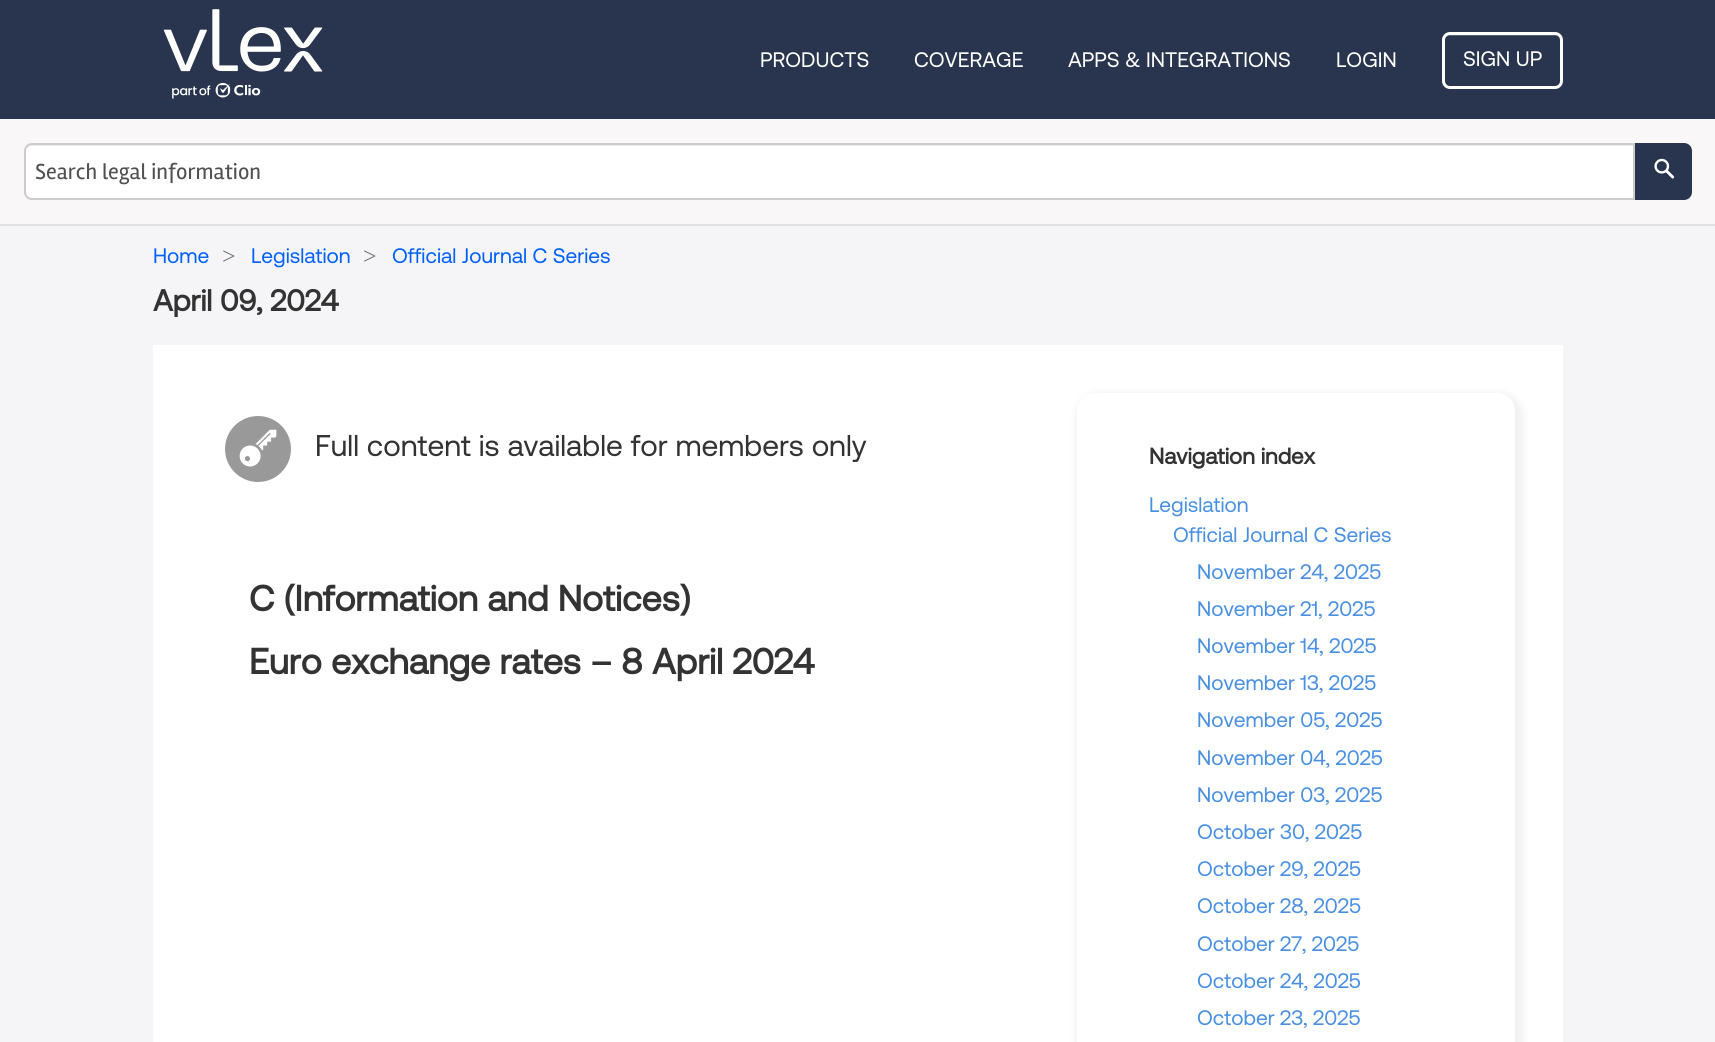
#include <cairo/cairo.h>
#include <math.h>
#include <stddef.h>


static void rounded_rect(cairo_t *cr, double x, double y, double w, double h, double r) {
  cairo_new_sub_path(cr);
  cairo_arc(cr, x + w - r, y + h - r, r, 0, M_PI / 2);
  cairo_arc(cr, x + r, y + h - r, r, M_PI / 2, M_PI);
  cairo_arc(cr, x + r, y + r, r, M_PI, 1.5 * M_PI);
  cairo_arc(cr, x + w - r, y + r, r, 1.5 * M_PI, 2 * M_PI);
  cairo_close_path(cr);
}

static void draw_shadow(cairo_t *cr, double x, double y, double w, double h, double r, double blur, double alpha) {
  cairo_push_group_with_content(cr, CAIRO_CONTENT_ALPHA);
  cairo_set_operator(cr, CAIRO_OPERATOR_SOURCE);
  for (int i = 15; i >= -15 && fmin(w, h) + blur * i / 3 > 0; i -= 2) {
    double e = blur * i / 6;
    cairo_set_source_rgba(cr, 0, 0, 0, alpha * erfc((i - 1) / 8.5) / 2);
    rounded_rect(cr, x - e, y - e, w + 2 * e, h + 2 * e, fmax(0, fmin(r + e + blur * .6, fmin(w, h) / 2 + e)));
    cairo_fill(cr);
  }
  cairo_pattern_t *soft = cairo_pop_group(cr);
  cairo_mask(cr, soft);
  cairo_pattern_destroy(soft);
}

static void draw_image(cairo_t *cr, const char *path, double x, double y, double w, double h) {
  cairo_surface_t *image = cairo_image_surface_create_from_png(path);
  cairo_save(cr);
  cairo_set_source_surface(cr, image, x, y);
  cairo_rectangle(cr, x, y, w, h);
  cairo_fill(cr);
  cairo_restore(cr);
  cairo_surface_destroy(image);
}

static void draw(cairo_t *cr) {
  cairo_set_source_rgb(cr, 245 / 255.0, 245 / 255.0, 247 / 255.0);
  cairo_paint(cr);
  cairo_set_source_rgb(cr, 41 / 255.0, 53 / 255.0, 78 / 255.0);
  cairo_rectangle(cr, 0, 0, 1715, 119);
  cairo_fill(cr);
  draw_image(cr, "images/1.png", 163, 9, 160, 90);
  cairo_set_source_rgb(cr, 84 / 255.0, 93 / 255.0, 113 / 255.0);
  cairo_new_path(cr);
  cairo_move_to(cr, 1449, 36);
  cairo_line_to(cr, 1556, 36);
  cairo_curve_to(cr, 1558, 36, 1560, 38, 1560, 40);
  cairo_curve_to(cr, 1560, 37, 1558, 35, 1555, 35);
  cairo_line_to(cr, 1450, 35);
  cairo_curve_to(cr, 1448, 35, 1447, 36, 1446, 37);
  cairo_close_path(cr);
  cairo_fill(cr);
  rounded_rect(cr, 1443.5, 33.5, 118, 54, 6.5);
  cairo_set_source_rgb(cr, 1, 1, 1);
  cairo_set_line_width(cr, 3);
  cairo_stroke(cr);
  cairo_set_source_rgb(cr, 249 / 255.0, 247 / 255.0, 247 / 255.0);
  cairo_rectangle(cr, 0, 119, 1715, 105);
  cairo_fill(cr);
  cairo_set_source_rgb(cr, 225 / 255.0, 225 / 255.0, 225 / 255.0);
  cairo_rectangle(cr, 0, 224, 1715, 2);
  cairo_fill(cr);
  cairo_set_source_rgb(cr, 1, 1, 1);
  cairo_new_path(cr);
  cairo_move_to(cr, 32, 143);
  cairo_line_to(cr, 1635, 143);
  cairo_line_to(cr, 1635, 200);
  cairo_line_to(cr, 32, 200);
  cairo_curve_to(cr, 27.5, 200, 24, 196.5, 24, 192);
  cairo_line_to(cr, 24, 151);
  cairo_curve_to(cr, 24, 146.5, 27.5, 143, 32, 143);
  cairo_close_path(cr);
  cairo_fill(cr);
  cairo_set_source_rgb(cr, 236 / 255.0, 236 / 255.0, 236 / 255.0);
  cairo_new_path(cr);
  cairo_move_to(cr, 32, 146);
  cairo_line_to(cr, 1634, 146);
  cairo_line_to(cr, 1634, 144);
  cairo_line_to(cr, 32, 144);
  cairo_curve_to(cr, 27, 144, 26, 148, 26, 152);
  cairo_curve_to(cr, 26, 148, 28, 146, 32, 146);
  cairo_close_path(cr);
  cairo_fill(cr);
  cairo_new_path(cr);
  cairo_move_to(cr, 32, 144);
  cairo_line_to(cr, 1634, 144);
  cairo_line_to(cr, 1634, 199);
  cairo_line_to(cr, 32, 199);
  cairo_curve_to(cr, 28, 199, 25, 196, 25, 192);
  cairo_line_to(cr, 25, 151);
  cairo_curve_to(cr, 25, 147, 28, 144, 32, 144);
  cairo_close_path(cr);
  cairo_set_source_rgb(cr, 204 / 255.0, 204 / 255.0, 204 / 255.0);
  cairo_set_line_width(cr, 2);
  cairo_stroke(cr);
  cairo_set_source_rgb(cr, 41 / 255.0, 53 / 255.0, 78 / 255.0);
  cairo_new_path(cr);
  cairo_move_to(cr, 1635, 143);
  cairo_line_to(cr, 1684, 143);
  cairo_curve_to(cr, 1688.5, 143, 1692, 146.5, 1692, 151);
  cairo_line_to(cr, 1692, 192);
  cairo_curve_to(cr, 1692, 196.5, 1688.5, 200, 1684, 200);
  cairo_line_to(cr, 1635, 200);
  cairo_close_path(cr);
  cairo_fill(cr);
  draw_image(cr, "images/2.png", 1654, 158, 21, 21);
  cairo_set_source_rgb(cr, 1, 1, 1);
  cairo_rectangle(cr, 153, 345, 1410, 697);
  cairo_fill(cr);
  cairo_set_source_rgb(cr, 153 / 255.0, 153 / 255.0, 153 / 255.0);
  cairo_arc(cr, 258, 449, 33, 0, 2 * M_PI);
  cairo_fill(cr);
  draw_image(cr, "images/3.png", 239, 429, 38, 38);
  cairo_set_source_rgb(cr, 0, 0, 0);
  draw_shadow(cr, 1076, 392, 447, 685, 23, 4, 0.06);
  cairo_set_source_rgb(cr, 1, 1, 1);
  rounded_rect(cr, 1077, 393, 438, 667, 18);
  cairo_fill(cr);
  cairo_select_font_face(cr, "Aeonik", CAIRO_FONT_SLANT_NORMAL, CAIRO_FONT_WEIGHT_NORMAL);
  cairo_set_font_size(cr, 21);
  cairo_move_to(cr, 760, 67);
  cairo_show_text(cr, "PRODUCTS");
  cairo_move_to(cr, 914, 67);
  cairo_show_text(cr, "COVERAGE");
  cairo_move_to(cr, 1068, 67);
  cairo_show_text(cr, "APPS & INTEGRATIONS");
  cairo_move_to(cr, 1336, 67);
  cairo_show_text(cr, "LOGIN");
  cairo_move_to(cr, 1463, 66);
  cairo_show_text(cr, "SIGN UP");
  cairo_select_font_face(cr, "Rambla", CAIRO_FONT_SLANT_NORMAL, CAIRO_FONT_WEIGHT_NORMAL);
  cairo_set_font_size(cr, 22.5);
  cairo_set_source_rgb(cr, 80 / 255.0, 80 / 255.0, 80 / 255.0);
  cairo_move_to(cr, 35, 179);
  cairo_show_text(cr, "Search legal information");
  cairo_select_font_face(cr, "Aeonik", CAIRO_FONT_SLANT_NORMAL, CAIRO_FONT_WEIGHT_NORMAL);
  cairo_set_font_size(cr, 21);
  cairo_set_source_rgb(cr, 1 / 255.0, 97 / 255.0, 1);
  cairo_move_to(cr, 153, 263);
  cairo_show_text(cr, "Home");
  cairo_select_font_face(cr, "Liberation Serif", CAIRO_FONT_SLANT_NORMAL, CAIRO_FONT_WEIGHT_NORMAL);
  cairo_set_font_size(cr, 24);
  cairo_set_source_rgb(cr, 113 / 255.0, 113 / 255.0, 122 / 255.0);
  cairo_move_to(cr, 222, 264);
  cairo_show_text(cr, ">");
  cairo_select_font_face(cr, "Aeonik", CAIRO_FONT_SLANT_NORMAL, CAIRO_FONT_WEIGHT_NORMAL);
  cairo_set_font_size(cr, 21);
  cairo_set_source_rgb(cr, 1 / 255.0, 97 / 255.0, 1);
  cairo_move_to(cr, 251, 263);
  cairo_show_text(cr, "Legislation");
  cairo_select_font_face(cr, "Liberation Serif", CAIRO_FONT_SLANT_NORMAL, CAIRO_FONT_WEIGHT_NORMAL);
  cairo_set_font_size(cr, 24);
  cairo_set_source_rgb(cr, 113 / 255.0, 113 / 255.0, 122 / 255.0);
  cairo_move_to(cr, 363, 264);
  cairo_show_text(cr, ">");
  cairo_select_font_face(cr, "Aeonik", CAIRO_FONT_SLANT_NORMAL, CAIRO_FONT_WEIGHT_NORMAL);
  cairo_set_font_size(cr, 21);
  cairo_set_source_rgb(cr, 1 / 255.0, 97 / 255.0, 1);
  cairo_move_to(cr, 392, 263);
  cairo_show_text(cr, "Official Journal C Series");
  cairo_select_font_face(cr, "Aeonik", CAIRO_FONT_SLANT_NORMAL, CAIRO_FONT_WEIGHT_BOLD);
  cairo_set_font_size(cr, 30);
  cairo_set_source_rgb(cr, 51 / 255.0, 51 / 255.0, 51 / 255.0);
  cairo_move_to(cr, 153, 311);
  cairo_show_text(cr, "April 09, 2024");
  cairo_select_font_face(cr, "Aeonik", CAIRO_FONT_SLANT_NORMAL, CAIRO_FONT_WEIGHT_NORMAL);
  cairo_move_to(cr, 315, 456);
  cairo_show_text(cr, "Full content is available for members only");
  cairo_select_font_face(cr, "Aeonik", CAIRO_FONT_SLANT_NORMAL, CAIRO_FONT_WEIGHT_BOLD);
  cairo_set_font_size(cr, 36);
  cairo_move_to(cr, 249, 611);
  cairo_show_text(cr, "C (Information and Notices)");
  cairo_move_to(cr, 249, 674);
  cairo_show_text(cr, "Euro exchange rates – 8 April 2024");
  cairo_set_font_size(cr, 22.5);
  cairo_move_to(cr, 1149, 464);
  cairo_show_text(cr, "Navigation index");
  cairo_select_font_face(cr, "Aeonik", CAIRO_FONT_SLANT_NORMAL, CAIRO_FONT_WEIGHT_NORMAL);
  cairo_set_font_size(cr, 21);
  cairo_set_source_rgb(cr, 74 / 255.0, 144 / 255.0, 226 / 255.0);
  cairo_move_to(cr, 1149, 512);
  cairo_show_text(cr, "Legislation");
  cairo_move_to(cr, 1173, 542);
  cairo_show_text(cr, "Official Journal C Series");
  cairo_move_to(cr, 1197, 579);
  cairo_show_text(cr, "November 24, 2025");
  cairo_move_to(cr, 1197, 616);
  cairo_show_text(cr, "November 21, 2025");
  cairo_move_to(cr, 1197, 653);
  cairo_show_text(cr, "November 14, 2025");
  cairo_move_to(cr, 1197, 690);
  cairo_show_text(cr, "November 13, 2025");
  cairo_move_to(cr, 1197, 727);
  cairo_show_text(cr, "November 05, 2025");
  cairo_move_to(cr, 1197, 765);
  cairo_show_text(cr, "November 04, 2025");
  cairo_move_to(cr, 1197, 802);
  cairo_show_text(cr, "November 03, 2025");
  cairo_move_to(cr, 1197, 839);
  cairo_show_text(cr, "October 30, 2025");
  cairo_move_to(cr, 1197, 876);
  cairo_show_text(cr, "October 29, 2025");
  cairo_move_to(cr, 1197, 913);
  cairo_show_text(cr, "October 28, 2025");
  cairo_move_to(cr, 1197, 951);
  cairo_show_text(cr, "October 27, 2025");
  cairo_move_to(cr, 1197, 988);
  cairo_show_text(cr, "October 24, 2025");
  cairo_move_to(cr, 1197, 1025);
  cairo_show_text(cr, "October 23, 2025");
}

int main(void) {
  cairo_surface_t *surface = cairo_image_surface_create(CAIRO_FORMAT_RGB24, 1715, 1042);
  cairo_t *cr = cairo_create(surface);
  cairo_font_options_t *options = cairo_font_options_create();
  cairo_font_options_set_hint_metrics(options, CAIRO_HINT_METRICS_OFF);
  cairo_font_options_set_hint_style(options, CAIRO_HINT_STYLE_NONE);
  cairo_set_font_options(cr, options);
  cairo_set_miter_limit(cr, 4);
  draw(cr);
  cairo_surface_write_to_png(surface, "out.png");
  cairo_font_options_destroy(options);
  cairo_destroy(cr);
  cairo_surface_destroy(surface);
  return 0;
}
